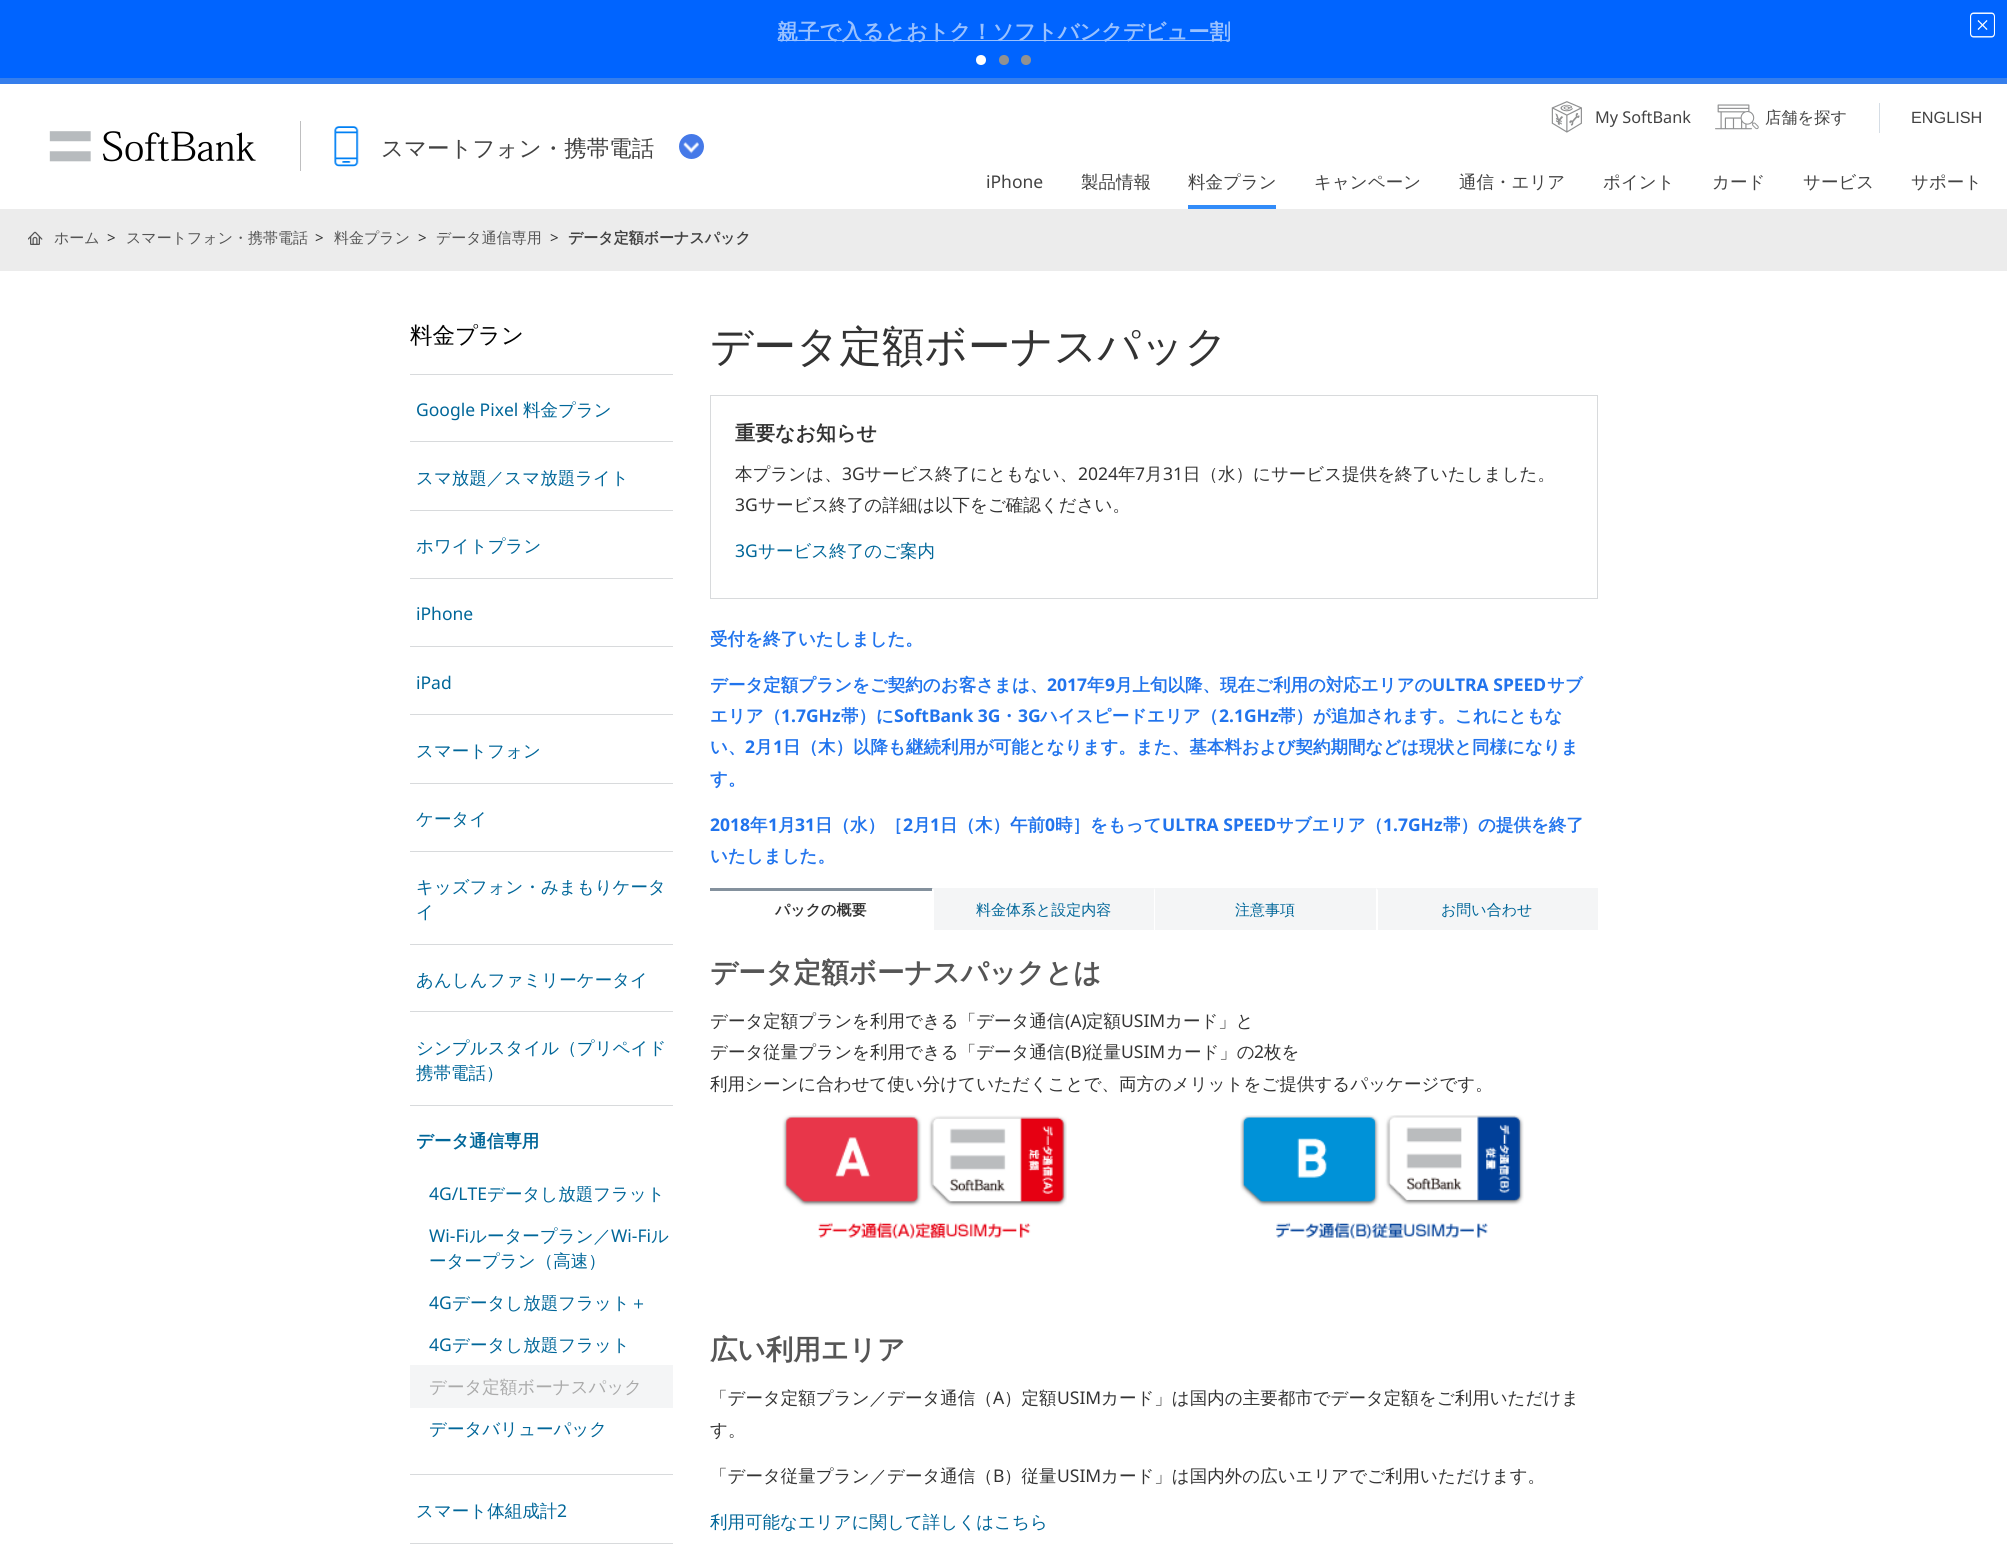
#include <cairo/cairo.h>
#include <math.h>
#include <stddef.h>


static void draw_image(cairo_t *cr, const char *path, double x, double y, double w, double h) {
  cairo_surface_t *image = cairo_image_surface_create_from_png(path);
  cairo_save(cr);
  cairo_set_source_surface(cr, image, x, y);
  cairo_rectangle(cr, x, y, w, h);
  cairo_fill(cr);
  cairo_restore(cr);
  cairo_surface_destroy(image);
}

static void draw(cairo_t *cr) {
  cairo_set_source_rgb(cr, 1, 1, 1);
  cairo_paint(cr);
  cairo_set_source_rgb(cr, 0, 100 / 255.0, 1);
  cairo_rectangle(cr, 0, 0, 2007, 78);
  cairo_fill(cr);
  cairo_set_source_rgb(cr, 153 / 255.0, 193 / 255.0, 1);
  cairo_rectangle(cr, 778, 40, 452, 1);
  cairo_fill(cr);
  draw_image(cr, "images/1.png", 1970, 12, 25, 26);
  cairo_set_source_rgb(cr, 1, 1, 1);
  cairo_arc(cr, 981, 60, 5, 0, 2 * M_PI);
  cairo_fill(cr);
  cairo_set_source_rgb(cr, 145 / 255.0, 145 / 255.0, 145 / 255.0);
  cairo_arc(cr, 1004, 60, 5, 0, 2 * M_PI);
  cairo_fill(cr);
  cairo_arc(cr, 1026, 60, 5, 0, 2 * M_PI);
  cairo_fill(cr);
  cairo_set_source_rgb(cr, 53 / 255.0, 126 / 255.0, 236 / 255.0);
  cairo_rectangle(cr, 0, 78, 2007, 6);
  cairo_fill(cr);
  draw_image(cr, "images/2.png", 1551, 101, 31, 32);
  draw_image(cr, "images/3.png", 1715, 104, 44, 26);
  cairo_set_source_rgb(cr, 213 / 255.0, 221 / 255.0, 229 / 255.0);
  cairo_rectangle(cr, 1879, 103, 1, 30);
  cairo_fill(cr);
  draw_image(cr, "images/4.png", 49, 131, 207, 31);
  cairo_set_source_rgb(cr, 191 / 255.0, 191 / 255.0, 192 / 255.0);
  cairo_rectangle(cr, 300, 121, 1, 50);
  cairo_fill(cr);
  draw_image(cr, "images/5.png", 334, 126, 25, 41);
  cairo_set_source_rgb(cr, 69 / 255.0, 121 / 255.0, 232 / 255.0);
  cairo_arc(cr, 691.5, 146.5, 12.5, 0, 2 * M_PI);
  cairo_fill(cr);
  draw_image(cr, "images/6.png", 683, 142, 16, 12);
  cairo_set_source_rgb(cr, 50 / 255.0, 140 / 255.0, 249 / 255.0);
  cairo_rectangle(cr, 1188, 205, 88, 4);
  cairo_fill(cr);
  cairo_set_source_rgb(cr, 236 / 255.0, 236 / 255.0, 236 / 255.0);
  cairo_rectangle(cr, 0, 209, 2007, 62);
  cairo_fill(cr);
  draw_image(cr, "images/7.png", 28, 231, 15, 14);
  cairo_set_source_rgb(cr, 216 / 255.0, 218 / 255.0, 220 / 255.0);
  cairo_rectangle(cr, 410, 374, 263, 1);
  cairo_fill(cr);
  cairo_rectangle(cr, 410, 441, 263, 1);
  cairo_fill(cr);
  cairo_rectangle(cr, 410, 510, 263, 1);
  cairo_fill(cr);
  cairo_rectangle(cr, 410, 578, 263, 1);
  cairo_fill(cr);
  cairo_rectangle(cr, 410, 646, 263, 1);
  cairo_fill(cr);
  cairo_rectangle(cr, 410, 714, 263, 1);
  cairo_fill(cr);
  cairo_rectangle(cr, 410, 783, 263, 1);
  cairo_fill(cr);
  cairo_rectangle(cr, 410, 851, 263, 1);
  cairo_fill(cr);
  cairo_rectangle(cr, 410, 944, 263, 1);
  cairo_fill(cr);
  cairo_rectangle(cr, 410, 1011, 263, 1);
  cairo_fill(cr);
  cairo_rectangle(cr, 410, 1105, 263, 1);
  cairo_fill(cr);
  cairo_rectangle(cr, 410, 1474, 263, 1);
  cairo_fill(cr);
  cairo_set_source_rgb(cr, 244 / 255.0, 245 / 255.0, 246 / 255.0);
  cairo_rectangle(cr, 410, 1365, 263, 43);
  cairo_fill(cr);
  cairo_set_source_rgb(cr, 216 / 255.0, 218 / 255.0, 220 / 255.0);
  cairo_rectangle(cr, 410, 1543, 263, 1);
  cairo_fill(cr);
  cairo_rectangle(cr, 710.5, 395.5, 887, 203);
  cairo_set_line_width(cr, 1);
  cairo_stroke(cr);
  cairo_set_source_rgb(cr, 132 / 255.0, 145 / 255.0, 157 / 255.0);
  cairo_rectangle(cr, 710, 888, 223, 3);
  cairo_fill(cr);
  cairo_set_source_rgb(cr, 244 / 255.0, 245 / 255.0, 246 / 255.0);
  cairo_rectangle(cr, 933, 889, 221, 41);
  cairo_fill(cr);
  cairo_new_path(cr);
  cairo_move_to(cr, 932, 888);
  cairo_line_to(cr, 1154, 888);
  cairo_line_to(cr, 1154, 890);
  cairo_line_to(cr, 934, 890);
  cairo_close_path(cr);
  cairo_fill(cr);
  cairo_set_source_rgb(cr, 1, 1, 1);
  cairo_new_path(cr);
  cairo_move_to(cr, 932, 930);
  cairo_line_to(cr, 932, 888);
  cairo_line_to(cr, 934, 890);
  cairo_line_to(cr, 934, 930);
  cairo_close_path(cr);
  cairo_fill(cr);
  cairo_set_source_rgb(cr, 244 / 255.0, 245 / 255.0, 246 / 255.0);
  cairo_rectangle(cr, 1154, 888, 444, 42);
  cairo_fill(cr);
  cairo_set_source_rgb(cr, 1, 1, 1);
  cairo_new_path(cr);
  cairo_move_to(cr, 1154, 930);
  cairo_line_to(cr, 1154, 888);
  cairo_line_to(cr, 1155, 890);
  cairo_line_to(cr, 1155, 930);
  cairo_close_path(cr);
  cairo_fill(cr);
  cairo_new_path(cr);
  cairo_move_to(cr, 1376, 930);
  cairo_line_to(cr, 1376, 888);
  cairo_line_to(cr, 1378, 890);
  cairo_line_to(cr, 1378, 930);
  cairo_close_path(cr);
  cairo_fill(cr);
  draw_image(cr, "images/8.png", 782, 1115, 285, 124);
  draw_image(cr, "images/9.png", 1240, 1115, 284, 124);
  cairo_select_font_face(cr, "WenQuanYi Zen Hei", CAIRO_FONT_SLANT_NORMAL, CAIRO_FONT_WEIGHT_BOLD);
  cairo_set_font_size(cr, 21.25);
  cairo_set_source_rgb(cr, 153 / 255.0, 193 / 255.0, 1);
  cairo_move_to(cr, 777, 39);
  cairo_show_text(cr, "親子で入るとおトク！ソフトバンクデビュー割");
  cairo_select_font_face(cr, "Noto Sans", CAIRO_FONT_SLANT_NORMAL, CAIRO_FONT_WEIGHT_NORMAL);
  cairo_set_font_size(cr, 16.25);
  cairo_set_source_rgb(cr, 66 / 255.0, 66 / 255.0, 66 / 255.0);
  cairo_move_to(cr, 1595, 123);
  cairo_show_text(cr, "My SoftBank");
  cairo_select_font_face(cr, "WenQuanYi Zen Hei Medium", CAIRO_FONT_SLANT_NORMAL, CAIRO_FONT_WEIGHT_NORMAL);
  cairo_move_to(cr, 1765, 123);
  cairo_show_text(cr, "店舗を探す");
  cairo_select_font_face(cr, "Liberation Sans", CAIRO_FONT_SLANT_NORMAL, CAIRO_FONT_WEIGHT_NORMAL);
  cairo_move_to(cr, 1911, 123);
  cairo_show_text(cr, "ENGLISH");
  cairo_select_font_face(cr, "WenQuanYi Zen Hei Medium", CAIRO_FONT_SLANT_NORMAL, CAIRO_FONT_WEIGHT_NORMAL);
  cairo_set_font_size(cr, 22.5);
  cairo_move_to(cr, 381, 156);
  cairo_show_text(cr, "スマートフォン・携帯電話");
  cairo_select_font_face(cr, "Noto Sans", CAIRO_FONT_SLANT_NORMAL, CAIRO_FONT_WEIGHT_NORMAL);
  cairo_set_font_size(cr, 17.5);
  cairo_move_to(cr, 986, 188);
  cairo_show_text(cr, "iPhone");
  cairo_select_font_face(cr, "WenQuanYi Zen Hei Medium", CAIRO_FONT_SLANT_NORMAL, CAIRO_FONT_WEIGHT_NORMAL);
  cairo_move_to(cr, 1081, 188);
  cairo_show_text(cr, "製品情報");
  cairo_move_to(cr, 1188, 188);
  cairo_show_text(cr, "料金プラン");
  cairo_move_to(cr, 1314, 188);
  cairo_show_text(cr, "キャンペーン");
  cairo_move_to(cr, 1459, 188);
  cairo_show_text(cr, "通信・エリア");
  cairo_move_to(cr, 1603, 188);
  cairo_show_text(cr, "ポイント");
  cairo_move_to(cr, 1712, 188);
  cairo_show_text(cr, "カード");
  cairo_move_to(cr, 1803, 188);
  cairo_show_text(cr, "サービス");
  cairo_move_to(cr, 1911, 188);
  cairo_show_text(cr, "サポート");
  cairo_set_font_size(cr, 15);
  cairo_set_source_rgb(cr, 85 / 255.0, 85 / 255.0, 85 / 255.0);
  cairo_move_to(cr, 54, 243);
  cairo_show_text(cr, "ホーム");
  cairo_select_font_face(cr, "Noto Sans", CAIRO_FONT_SLANT_NORMAL, CAIRO_FONT_WEIGHT_NORMAL);
  cairo_set_source_rgb(cr, 51 / 255.0, 51 / 255.0, 51 / 255.0);
  cairo_move_to(cr, 107, 243);
  cairo_show_text(cr, ">");
  cairo_select_font_face(cr, "WenQuanYi Zen Hei Medium", CAIRO_FONT_SLANT_NORMAL, CAIRO_FONT_WEIGHT_NORMAL);
  cairo_set_source_rgb(cr, 85 / 255.0, 85 / 255.0, 85 / 255.0);
  cairo_move_to(cr, 126, 243);
  cairo_show_text(cr, "スマートフォン・携帯電話");
  cairo_select_font_face(cr, "Noto Sans", CAIRO_FONT_SLANT_NORMAL, CAIRO_FONT_WEIGHT_NORMAL);
  cairo_set_source_rgb(cr, 51 / 255.0, 51 / 255.0, 51 / 255.0);
  cairo_move_to(cr, 315, 243);
  cairo_show_text(cr, ">");
  cairo_select_font_face(cr, "WenQuanYi Zen Hei Medium", CAIRO_FONT_SLANT_NORMAL, CAIRO_FONT_WEIGHT_NORMAL);
  cairo_set_source_rgb(cr, 85 / 255.0, 85 / 255.0, 85 / 255.0);
  cairo_move_to(cr, 334, 243);
  cairo_show_text(cr, "料金プラン");
  cairo_select_font_face(cr, "Noto Sans", CAIRO_FONT_SLANT_NORMAL, CAIRO_FONT_WEIGHT_NORMAL);
  cairo_set_source_rgb(cr, 51 / 255.0, 51 / 255.0, 51 / 255.0);
  cairo_move_to(cr, 418, 243);
  cairo_show_text(cr, ">");
  cairo_select_font_face(cr, "WenQuanYi Zen Hei Medium", CAIRO_FONT_SLANT_NORMAL, CAIRO_FONT_WEIGHT_NORMAL);
  cairo_set_source_rgb(cr, 85 / 255.0, 85 / 255.0, 85 / 255.0);
  cairo_move_to(cr, 436, 243);
  cairo_show_text(cr, "データ通信専用");
  cairo_select_font_face(cr, "Noto Sans", CAIRO_FONT_SLANT_NORMAL, CAIRO_FONT_WEIGHT_NORMAL);
  cairo_set_source_rgb(cr, 51 / 255.0, 51 / 255.0, 51 / 255.0);
  cairo_move_to(cr, 550, 243);
  cairo_show_text(cr, ">");
  cairo_select_font_face(cr, "WenQuanYi Zen Hei", CAIRO_FONT_SLANT_NORMAL, CAIRO_FONT_WEIGHT_BOLD);
  cairo_set_source_rgb(cr, 66 / 255.0, 66 / 255.0, 66 / 255.0);
  cairo_move_to(cr, 568, 243);
  cairo_show_text(cr, "データ定額ボーナスパック");
  cairo_select_font_face(cr, "WenQuanYi Zen Hei Medium", CAIRO_FONT_SLANT_NORMAL, CAIRO_FONT_WEIGHT_NORMAL);
  cairo_set_font_size(cr, 22.5);
  cairo_set_source_rgb(cr, 0, 0, 0);
  cairo_move_to(cr, 410, 343);
  cairo_show_text(cr, "料金プラン");
  cairo_select_font_face(cr, "Noto Sans", CAIRO_FONT_SLANT_NORMAL, CAIRO_FONT_WEIGHT_NORMAL);
  cairo_set_font_size(cr, 17.5);
  cairo_set_source_rgb(cr, 0, 102 / 255.0, 153 / 255.0);
  cairo_move_to(cr, 416, 416);
  cairo_show_text(cr, "Google Pixel");
  cairo_select_font_face(cr, "WenQuanYi Zen Hei Medium", CAIRO_FONT_SLANT_NORMAL, CAIRO_FONT_WEIGHT_NORMAL);
  cairo_move_to(cr, 523, 416);
  cairo_show_text(cr, "料金プラン");
  cairo_move_to(cr, 416, 484);
  cairo_show_text(cr, "スマ放題／スマ放題ライト");
  cairo_move_to(cr, 416, 552);
  cairo_show_text(cr, "ホワイトプラン");
  cairo_select_font_face(cr, "Noto Sans", CAIRO_FONT_SLANT_NORMAL, CAIRO_FONT_WEIGHT_NORMAL);
  cairo_move_to(cr, 416, 620);
  cairo_show_text(cr, "iPhone");
  cairo_move_to(cr, 416, 689);
  cairo_show_text(cr, "iPad");
  cairo_select_font_face(cr, "WenQuanYi Zen Hei Medium", CAIRO_FONT_SLANT_NORMAL, CAIRO_FONT_WEIGHT_NORMAL);
  cairo_move_to(cr, 416, 757);
  cairo_show_text(cr, "スマートフォン");
  cairo_move_to(cr, 416, 825);
  cairo_show_text(cr, "ケータイ");
  cairo_move_to(cr, 416, 893);
  cairo_show_text(cr, "キッズフォン・みまもりケータ");
  cairo_move_to(cr, 416, 918);
  cairo_show_text(cr, "イ");
  cairo_move_to(cr, 416, 986);
  cairo_show_text(cr, "あんしんファミリーケータイ");
  cairo_move_to(cr, 416, 1054);
  cairo_show_text(cr, "シンプルスタイル（プリペイド");
  cairo_move_to(cr, 416, 1079);
  cairo_show_text(cr, "携帯電話）");
  cairo_select_font_face(cr, "WenQuanYi Zen Hei", CAIRO_FONT_SLANT_NORMAL, CAIRO_FONT_WEIGHT_BOLD);
  cairo_move_to(cr, 416, 1147);
  cairo_show_text(cr, "データ通信専用");
  cairo_select_font_face(cr, "Noto Sans", CAIRO_FONT_SLANT_NORMAL, CAIRO_FONT_WEIGHT_NORMAL);
  cairo_move_to(cr, 429, 1200);
  cairo_show_text(cr, "4G/LTE");
  cairo_select_font_face(cr, "WenQuanYi Zen Hei Medium", CAIRO_FONT_SLANT_NORMAL, CAIRO_FONT_WEIGHT_NORMAL);
  cairo_move_to(cr, 487, 1200);
  cairo_show_text(cr, "データし放題フラット");
  cairo_select_font_face(cr, "Noto Sans", CAIRO_FONT_SLANT_NORMAL, CAIRO_FONT_WEIGHT_NORMAL);
  cairo_move_to(cr, 429, 1242);
  cairo_show_text(cr, "Wi-Fi");
  cairo_select_font_face(cr, "WenQuanYi Zen Hei Medium", CAIRO_FONT_SLANT_NORMAL, CAIRO_FONT_WEIGHT_NORMAL);
  cairo_move_to(cr, 469, 1242);
  cairo_show_text(cr, "ルータープラン／");
  cairo_select_font_face(cr, "Noto Sans", CAIRO_FONT_SLANT_NORMAL, CAIRO_FONT_WEIGHT_NORMAL);
  cairo_move_to(cr, 611, 1242);
  cairo_show_text(cr, "Wi-Fi");
  cairo_select_font_face(cr, "WenQuanYi Zen Hei Medium", CAIRO_FONT_SLANT_NORMAL, CAIRO_FONT_WEIGHT_NORMAL);
  cairo_move_to(cr, 651, 1242);
  cairo_show_text(cr, "ル");
  cairo_move_to(cr, 429, 1267);
  cairo_show_text(cr, "ータープラン（高速）");
  cairo_select_font_face(cr, "Noto Sans", CAIRO_FONT_SLANT_NORMAL, CAIRO_FONT_WEIGHT_NORMAL);
  cairo_move_to(cr, 429, 1309);
  cairo_show_text(cr, "4G");
  cairo_select_font_face(cr, "WenQuanYi Zen Hei Medium", CAIRO_FONT_SLANT_NORMAL, CAIRO_FONT_WEIGHT_NORMAL);
  cairo_move_to(cr, 452, 1309);
  cairo_show_text(cr, "データし放題フラット＋");
  cairo_select_font_face(cr, "Noto Sans", CAIRO_FONT_SLANT_NORMAL, CAIRO_FONT_WEIGHT_NORMAL);
  cairo_move_to(cr, 429, 1351);
  cairo_show_text(cr, "4G");
  cairo_select_font_face(cr, "WenQuanYi Zen Hei Medium", CAIRO_FONT_SLANT_NORMAL, CAIRO_FONT_WEIGHT_NORMAL);
  cairo_move_to(cr, 452, 1351);
  cairo_show_text(cr, "データし放題フラット");
  cairo_set_source_rgb(cr, 170 / 255.0, 170 / 255.0, 170 / 255.0);
  cairo_move_to(cr, 429, 1393);
  cairo_show_text(cr, "データ定額ボーナスパック");
  cairo_set_source_rgb(cr, 0, 102 / 255.0, 153 / 255.0);
  cairo_move_to(cr, 429, 1435);
  cairo_show_text(cr, "データバリューパック");
  cairo_move_to(cr, 416, 1517);
  cairo_show_text(cr, "スマート体組成計");
  cairo_select_font_face(cr, "Noto Sans", CAIRO_FONT_SLANT_NORMAL, CAIRO_FONT_WEIGHT_NORMAL);
  cairo_move_to(cr, 557, 1517);
  cairo_show_text(cr, "2");
  cairo_select_font_face(cr, "WenQuanYi Zen Hei Medium", CAIRO_FONT_SLANT_NORMAL, CAIRO_FONT_WEIGHT_NORMAL);
  cairo_set_font_size(cr, 42.5);
  cairo_set_source_rgb(cr, 51 / 255.0, 51 / 255.0, 51 / 255.0);
  cairo_move_to(cr, 710, 361);
  cairo_show_text(cr, "データ定額ボーナスパック");
  cairo_select_font_face(cr, "WenQuanYi Zen Hei", CAIRO_FONT_SLANT_NORMAL, CAIRO_FONT_WEIGHT_BOLD);
  cairo_set_font_size(cr, 20);
  cairo_move_to(cr, 735, 440);
  cairo_show_text(cr, "重要なお知らせ");
  cairo_select_font_face(cr, "WenQuanYi Zen Hei Medium", CAIRO_FONT_SLANT_NORMAL, CAIRO_FONT_WEIGHT_NORMAL);
  cairo_set_font_size(cr, 17.5);
  cairo_move_to(cr, 735, 480);
  cairo_show_text(cr, "本プランは、");
  cairo_select_font_face(cr, "Noto Sans", CAIRO_FONT_SLANT_NORMAL, CAIRO_FONT_WEIGHT_NORMAL);
  cairo_move_to(cr, 842, 480);
  cairo_show_text(cr, "3G");
  cairo_select_font_face(cr, "WenQuanYi Zen Hei Medium", CAIRO_FONT_SLANT_NORMAL, CAIRO_FONT_WEIGHT_NORMAL);
  cairo_move_to(cr, 864, 480);
  cairo_show_text(cr, "サービス終了にともない、");
  cairo_select_font_face(cr, "Noto Sans", CAIRO_FONT_SLANT_NORMAL, CAIRO_FONT_WEIGHT_NORMAL);
  cairo_move_to(cr, 1078, 480);
  cairo_show_text(cr, "2024");
  cairo_select_font_face(cr, "WenQuanYi Zen Hei Medium", CAIRO_FONT_SLANT_NORMAL, CAIRO_FONT_WEIGHT_NORMAL);
  cairo_move_to(cr, 1118, 480);
  cairo_show_text(cr, "年");
  cairo_select_font_face(cr, "Noto Sans", CAIRO_FONT_SLANT_NORMAL, CAIRO_FONT_WEIGHT_NORMAL);
  cairo_move_to(cr, 1135, 480);
  cairo_show_text(cr, "7");
  cairo_select_font_face(cr, "WenQuanYi Zen Hei Medium", CAIRO_FONT_SLANT_NORMAL, CAIRO_FONT_WEIGHT_NORMAL);
  cairo_move_to(cr, 1145, 480);
  cairo_show_text(cr, "月");
  cairo_select_font_face(cr, "Noto Sans", CAIRO_FONT_SLANT_NORMAL, CAIRO_FONT_WEIGHT_NORMAL);
  cairo_move_to(cr, 1163, 480);
  cairo_show_text(cr, "31");
  cairo_select_font_face(cr, "WenQuanYi Zen Hei Medium", CAIRO_FONT_SLANT_NORMAL, CAIRO_FONT_WEIGHT_NORMAL);
  cairo_move_to(cr, 1183, 480);
  cairo_show_text(cr, "日（水）にサービス提供を終了いたしました。");
  cairo_select_font_face(cr, "Noto Sans", CAIRO_FONT_SLANT_NORMAL, CAIRO_FONT_WEIGHT_NORMAL);
  cairo_move_to(cr, 735, 511);
  cairo_show_text(cr, "3G");
  cairo_select_font_face(cr, "WenQuanYi Zen Hei Medium", CAIRO_FONT_SLANT_NORMAL, CAIRO_FONT_WEIGHT_NORMAL);
  cairo_move_to(cr, 758, 511);
  cairo_show_text(cr, "サービス終了の詳細は以下をご確認ください。");
  cairo_select_font_face(cr, "Noto Sans", CAIRO_FONT_SLANT_NORMAL, CAIRO_FONT_WEIGHT_NORMAL);
  cairo_set_source_rgb(cr, 0, 102 / 255.0, 153 / 255.0);
  cairo_move_to(cr, 735, 557);
  cairo_show_text(cr, "3G");
  cairo_select_font_face(cr, "WenQuanYi Zen Hei Medium", CAIRO_FONT_SLANT_NORMAL, CAIRO_FONT_WEIGHT_NORMAL);
  cairo_move_to(cr, 758, 557);
  cairo_show_text(cr, "サービス終了のご案内");
  cairo_select_font_face(cr, "WenQuanYi Zen Hei", CAIRO_FONT_SLANT_NORMAL, CAIRO_FONT_WEIGHT_BOLD);
  cairo_set_source_rgb(cr, 33 / 255.0, 116 / 255.0, 237 / 255.0);
  cairo_move_to(cr, 710, 645);
  cairo_show_text(cr, "受付を終了いたしました。");
  cairo_move_to(cr, 710, 691);
  cairo_show_text(cr, "データ定額プランをご契約のお客さまは、");
  cairo_select_font_face(cr, "Noto Sans", CAIRO_FONT_SLANT_NORMAL, CAIRO_FONT_WEIGHT_BOLD);
  cairo_move_to(cr, 1047, 691);
  cairo_show_text(cr, "2017");
  cairo_select_font_face(cr, "WenQuanYi Zen Hei", CAIRO_FONT_SLANT_NORMAL, CAIRO_FONT_WEIGHT_BOLD);
  cairo_move_to(cr, 1087, 691);
  cairo_show_text(cr, "年");
  cairo_select_font_face(cr, "Noto Sans", CAIRO_FONT_SLANT_NORMAL, CAIRO_FONT_WEIGHT_BOLD);
  cairo_move_to(cr, 1105, 691);
  cairo_show_text(cr, "9");
  cairo_select_font_face(cr, "WenQuanYi Zen Hei", CAIRO_FONT_SLANT_NORMAL, CAIRO_FONT_WEIGHT_BOLD);
  cairo_move_to(cr, 1115, 691);
  cairo_show_text(cr, "月上旬以降、現在ご利用の対応エリアの");
  cairo_select_font_face(cr, "Noto Sans", CAIRO_FONT_SLANT_NORMAL, CAIRO_FONT_WEIGHT_BOLD);
  cairo_move_to(cr, 1432, 691);
  cairo_show_text(cr, "ULTRA SPEED");
  cairo_select_font_face(cr, "WenQuanYi Zen Hei", CAIRO_FONT_SLANT_NORMAL, CAIRO_FONT_WEIGHT_BOLD);
  cairo_move_to(cr, 1547, 691);
  cairo_show_text(cr, "サブ");
  cairo_move_to(cr, 710, 722);
  cairo_show_text(cr, "エリア（");
  cairo_select_font_face(cr, "Noto Sans", CAIRO_FONT_SLANT_NORMAL, CAIRO_FONT_WEIGHT_BOLD);
  cairo_move_to(cr, 781, 722);
  cairo_show_text(cr, "1.7GHz");
  cairo_select_font_face(cr, "WenQuanYi Zen Hei", CAIRO_FONT_SLANT_NORMAL, CAIRO_FONT_WEIGHT_BOLD);
  cairo_move_to(cr, 841, 722);
  cairo_show_text(cr, "帯）に");
  cairo_select_font_face(cr, "Noto Sans", CAIRO_FONT_SLANT_NORMAL, CAIRO_FONT_WEIGHT_BOLD);
  cairo_move_to(cr, 894, 722);
  cairo_show_text(cr, "SoftBank 3G");
  cairo_select_font_face(cr, "WenQuanYi Zen Hei", CAIRO_FONT_SLANT_NORMAL, CAIRO_FONT_WEIGHT_BOLD);
  cairo_move_to(cr, 1000, 722);
  cairo_show_text(cr, "・");
  cairo_select_font_face(cr, "Noto Sans", CAIRO_FONT_SLANT_NORMAL, CAIRO_FONT_WEIGHT_BOLD);
  cairo_move_to(cr, 1018, 722);
  cairo_show_text(cr, "3G");
  cairo_select_font_face(cr, "WenQuanYi Zen Hei", CAIRO_FONT_SLANT_NORMAL, CAIRO_FONT_WEIGHT_BOLD);
  cairo_move_to(cr, 1040, 722);
  cairo_show_text(cr, "ハイスピードエリア（");
  cairo_select_font_face(cr, "Noto Sans", CAIRO_FONT_SLANT_NORMAL, CAIRO_FONT_WEIGHT_BOLD);
  cairo_move_to(cr, 1219, 722);
  cairo_show_text(cr, "2.1GHz");
  cairo_select_font_face(cr, "WenQuanYi Zen Hei", CAIRO_FONT_SLANT_NORMAL, CAIRO_FONT_WEIGHT_BOLD);
  cairo_move_to(cr, 1278, 722);
  cairo_show_text(cr, "帯）が追加されます。これにともな");
  cairo_move_to(cr, 710, 753);
  cairo_show_text(cr, "い、");
  cairo_select_font_face(cr, "Noto Sans", CAIRO_FONT_SLANT_NORMAL, CAIRO_FONT_WEIGHT_BOLD);
  cairo_move_to(cr, 745, 753);
  cairo_show_text(cr, "2");
  cairo_select_font_face(cr, "WenQuanYi Zen Hei", CAIRO_FONT_SLANT_NORMAL, CAIRO_FONT_WEIGHT_BOLD);
  cairo_move_to(cr, 755, 753);
  cairo_show_text(cr, "月");
  cairo_select_font_face(cr, "Noto Sans", CAIRO_FONT_SLANT_NORMAL, CAIRO_FONT_WEIGHT_BOLD);
  cairo_move_to(cr, 773, 753);
  cairo_show_text(cr, "1");
  cairo_select_font_face(cr, "WenQuanYi Zen Hei", CAIRO_FONT_SLANT_NORMAL, CAIRO_FONT_WEIGHT_BOLD);
  cairo_move_to(cr, 783, 753);
  cairo_show_text(cr, "日（木）以降も継続利用が可能となります。また、基本料および契約期間などは現状と同様になりま");
  cairo_move_to(cr, 710, 785);
  cairo_show_text(cr, "す。");
  cairo_select_font_face(cr, "Noto Sans", CAIRO_FONT_SLANT_NORMAL, CAIRO_FONT_WEIGHT_BOLD);
  cairo_move_to(cr, 710, 831);
  cairo_show_text(cr, "2018");
  cairo_select_font_face(cr, "WenQuanYi Zen Hei", CAIRO_FONT_SLANT_NORMAL, CAIRO_FONT_WEIGHT_BOLD);
  cairo_move_to(cr, 750, 831);
  cairo_show_text(cr, "年");
  cairo_select_font_face(cr, "Noto Sans", CAIRO_FONT_SLANT_NORMAL, CAIRO_FONT_WEIGHT_BOLD);
  cairo_move_to(cr, 768, 831);
  cairo_show_text(cr, "1");
  cairo_select_font_face(cr, "WenQuanYi Zen Hei", CAIRO_FONT_SLANT_NORMAL, CAIRO_FONT_WEIGHT_BOLD);
  cairo_move_to(cr, 778, 831);
  cairo_show_text(cr, "月");
  cairo_select_font_face(cr, "Noto Sans", CAIRO_FONT_SLANT_NORMAL, CAIRO_FONT_WEIGHT_BOLD);
  cairo_move_to(cr, 795, 831);
  cairo_show_text(cr, "31");
  cairo_select_font_face(cr, "WenQuanYi Zen Hei", CAIRO_FONT_SLANT_NORMAL, CAIRO_FONT_WEIGHT_BOLD);
  cairo_move_to(cr, 815, 831);
  cairo_show_text(cr, "日（水）［");
  cairo_select_font_face(cr, "Noto Sans", CAIRO_FONT_SLANT_NORMAL, CAIRO_FONT_WEIGHT_BOLD);
  cairo_move_to(cr, 903, 831);
  cairo_show_text(cr, "2");
  cairo_select_font_face(cr, "WenQuanYi Zen Hei", CAIRO_FONT_SLANT_NORMAL, CAIRO_FONT_WEIGHT_BOLD);
  cairo_move_to(cr, 913, 831);
  cairo_show_text(cr, "月");
  cairo_select_font_face(cr, "Noto Sans", CAIRO_FONT_SLANT_NORMAL, CAIRO_FONT_WEIGHT_BOLD);
  cairo_move_to(cr, 930, 831);
  cairo_show_text(cr, "1");
  cairo_select_font_face(cr, "WenQuanYi Zen Hei", CAIRO_FONT_SLANT_NORMAL, CAIRO_FONT_WEIGHT_BOLD);
  cairo_move_to(cr, 940, 831);
  cairo_show_text(cr, "日（木）午前");
  cairo_select_font_face(cr, "Noto Sans", CAIRO_FONT_SLANT_NORMAL, CAIRO_FONT_WEIGHT_BOLD);
  cairo_move_to(cr, 1045, 831);
  cairo_show_text(cr, "0");
  cairo_select_font_face(cr, "WenQuanYi Zen Hei", CAIRO_FONT_SLANT_NORMAL, CAIRO_FONT_WEIGHT_BOLD);
  cairo_move_to(cr, 1055, 831);
  cairo_show_text(cr, "時］をもって");
  cairo_select_font_face(cr, "Noto Sans", CAIRO_FONT_SLANT_NORMAL, CAIRO_FONT_WEIGHT_BOLD);
  cairo_move_to(cr, 1162, 831);
  cairo_show_text(cr, "ULTRA SPEED");
  cairo_select_font_face(cr, "WenQuanYi Zen Hei", CAIRO_FONT_SLANT_NORMAL, CAIRO_FONT_WEIGHT_BOLD);
  cairo_move_to(cr, 1276, 831);
  cairo_show_text(cr, "サブエリア（");
  cairo_select_font_face(cr, "Noto Sans", CAIRO_FONT_SLANT_NORMAL, CAIRO_FONT_WEIGHT_BOLD);
  cairo_move_to(cr, 1383, 831);
  cairo_show_text(cr, "1.7GHz");
  cairo_select_font_face(cr, "WenQuanYi Zen Hei", CAIRO_FONT_SLANT_NORMAL, CAIRO_FONT_WEIGHT_BOLD);
  cairo_move_to(cr, 1443, 831);
  cairo_show_text(cr, "帯）の提供を終了");
  cairo_move_to(cr, 710, 862);
  cairo_show_text(cr, "いたしました。");
  cairo_set_font_size(cr, 15);
  cairo_set_source_rgb(cr, 51 / 255.0, 51 / 255.0, 51 / 255.0);
  cairo_move_to(cr, 775, 915);
  cairo_show_text(cr, "パックの概要");
  cairo_select_font_face(cr, "WenQuanYi Zen Hei Medium", CAIRO_FONT_SLANT_NORMAL, CAIRO_FONT_WEIGHT_NORMAL);
  cairo_set_source_rgb(cr, 0, 102 / 255.0, 153 / 255.0);
  cairo_move_to(cr, 976, 915);
  cairo_show_text(cr, "料金体系と設定内容");
  cairo_move_to(cr, 1235, 915);
  cairo_show_text(cr, "注意事項");
  cairo_move_to(cr, 1441, 915);
  cairo_show_text(cr, "お問い合わせ");
  cairo_select_font_face(cr, "WenQuanYi Zen Hei", CAIRO_FONT_SLANT_NORMAL, CAIRO_FONT_WEIGHT_BOLD);
  cairo_set_font_size(cr, 27.5);
  cairo_set_source_rgb(cr, 85 / 255.0, 85 / 255.0, 85 / 255.0);
  cairo_move_to(cr, 710, 982);
  cairo_show_text(cr, "データ定額ボーナスパックとは");
  cairo_select_font_face(cr, "WenQuanYi Zen Hei Medium", CAIRO_FONT_SLANT_NORMAL, CAIRO_FONT_WEIGHT_NORMAL);
  cairo_set_font_size(cr, 17.5);
  cairo_set_source_rgb(cr, 51 / 255.0, 51 / 255.0, 51 / 255.0);
  cairo_move_to(cr, 710, 1027);
  cairo_show_text(cr, "データ定額プランを利用できる「データ通信");
  cairo_select_font_face(cr, "Noto Sans", CAIRO_FONT_SLANT_NORMAL, CAIRO_FONT_WEIGHT_NORMAL);
  cairo_move_to(cr, 1065, 1027);
  cairo_show_text(cr, "(A)");
  cairo_select_font_face(cr, "WenQuanYi Zen Hei Medium", CAIRO_FONT_SLANT_NORMAL, CAIRO_FONT_WEIGHT_NORMAL);
  cairo_move_to(cr, 1086, 1027);
  cairo_show_text(cr, "定額");
  cairo_select_font_face(cr, "Noto Sans", CAIRO_FONT_SLANT_NORMAL, CAIRO_FONT_WEIGHT_NORMAL);
  cairo_move_to(cr, 1121, 1027);
  cairo_show_text(cr, "USIM");
  cairo_select_font_face(cr, "WenQuanYi Zen Hei Medium", CAIRO_FONT_SLANT_NORMAL, CAIRO_FONT_WEIGHT_NORMAL);
  cairo_move_to(cr, 1165, 1027);
  cairo_show_text(cr, "カード」と");
  cairo_move_to(cr, 710, 1058);
  cairo_show_text(cr, "データ従量プランを利用できる「データ通信");
  cairo_select_font_face(cr, "Noto Sans", CAIRO_FONT_SLANT_NORMAL, CAIRO_FONT_WEIGHT_NORMAL);
  cairo_move_to(cr, 1065, 1058);
  cairo_show_text(cr, "(B)");
  cairo_select_font_face(cr, "WenQuanYi Zen Hei Medium", CAIRO_FONT_SLANT_NORMAL, CAIRO_FONT_WEIGHT_NORMAL);
  cairo_move_to(cr, 1086, 1058);
  cairo_show_text(cr, "従量");
  cairo_select_font_face(cr, "Noto Sans", CAIRO_FONT_SLANT_NORMAL, CAIRO_FONT_WEIGHT_NORMAL);
  cairo_move_to(cr, 1121, 1058);
  cairo_show_text(cr, "USIM");
  cairo_select_font_face(cr, "WenQuanYi Zen Hei Medium", CAIRO_FONT_SLANT_NORMAL, CAIRO_FONT_WEIGHT_NORMAL);
  cairo_move_to(cr, 1166, 1058);
  cairo_show_text(cr, "カード」の");
  cairo_select_font_face(cr, "Noto Sans", CAIRO_FONT_SLANT_NORMAL, CAIRO_FONT_WEIGHT_NORMAL);
  cairo_move_to(cr, 1254, 1058);
  cairo_show_text(cr, "2");
  cairo_select_font_face(cr, "WenQuanYi Zen Hei Medium", CAIRO_FONT_SLANT_NORMAL, CAIRO_FONT_WEIGHT_NORMAL);
  cairo_move_to(cr, 1264, 1058);
  cairo_show_text(cr, "枚を");
  cairo_move_to(cr, 710, 1090);
  cairo_show_text(cr, "利用シーンに合わせて使い分けていただくことで、両方のメリットをご提供するパッケージです。");
  cairo_select_font_face(cr, "WenQuanYi Zen Hei", CAIRO_FONT_SLANT_NORMAL, CAIRO_FONT_WEIGHT_BOLD);
  cairo_set_font_size(cr, 27.5);
  cairo_set_source_rgb(cr, 85 / 255.0, 85 / 255.0, 85 / 255.0);
  cairo_move_to(cr, 710, 1359);
  cairo_show_text(cr, "広い利用エリア");
  cairo_select_font_face(cr, "WenQuanYi Zen Hei Medium", CAIRO_FONT_SLANT_NORMAL, CAIRO_FONT_WEIGHT_NORMAL);
  cairo_set_font_size(cr, 17.5);
  cairo_set_source_rgb(cr, 51 / 255.0, 51 / 255.0, 51 / 255.0);
  cairo_move_to(cr, 710, 1404);
  cairo_show_text(cr, "「データ定額プラン／データ通信（");
  cairo_select_font_face(cr, "Noto Sans", CAIRO_FONT_SLANT_NORMAL, CAIRO_FONT_WEIGHT_NORMAL);
  cairo_move_to(cr, 993, 1404);
  cairo_show_text(cr, "A");
  cairo_select_font_face(cr, "WenQuanYi Zen Hei Medium", CAIRO_FONT_SLANT_NORMAL, CAIRO_FONT_WEIGHT_NORMAL);
  cairo_move_to(cr, 1004, 1404);
  cairo_show_text(cr, "）定額");
  cairo_select_font_face(cr, "Noto Sans", CAIRO_FONT_SLANT_NORMAL, CAIRO_FONT_WEIGHT_NORMAL);
  cairo_move_to(cr, 1057, 1404);
  cairo_show_text(cr, "USIM");
  cairo_select_font_face(cr, "WenQuanYi Zen Hei Medium", CAIRO_FONT_SLANT_NORMAL, CAIRO_FONT_WEIGHT_NORMAL);
  cairo_move_to(cr, 1101, 1404);
  cairo_show_text(cr, "カード」は国内の主要都市でデータ定額をご利用いただけま");
  cairo_move_to(cr, 710, 1436);
  cairo_show_text(cr, "す。");
  cairo_move_to(cr, 710, 1482);
  cairo_show_text(cr, "「データ従量プラン／データ通信（");
  cairo_select_font_face(cr, "Noto Sans", CAIRO_FONT_SLANT_NORMAL, CAIRO_FONT_WEIGHT_NORMAL);
  cairo_move_to(cr, 993, 1482);
  cairo_show_text(cr, "B");
  cairo_select_font_face(cr, "WenQuanYi Zen Hei Medium", CAIRO_FONT_SLANT_NORMAL, CAIRO_FONT_WEIGHT_NORMAL);
  cairo_move_to(cr, 1004, 1482);
  cairo_show_text(cr, "）従量");
  cairo_select_font_face(cr, "Noto Sans", CAIRO_FONT_SLANT_NORMAL, CAIRO_FONT_WEIGHT_NORMAL);
  cairo_move_to(cr, 1057, 1482);
  cairo_show_text(cr, "USIM");
  cairo_select_font_face(cr, "WenQuanYi Zen Hei Medium", CAIRO_FONT_SLANT_NORMAL, CAIRO_FONT_WEIGHT_NORMAL);
  cairo_move_to(cr, 1101, 1482);
  cairo_show_text(cr, "カード」は国内外の広いエリアでご利用いただけます。");
  cairo_set_source_rgb(cr, 0, 102 / 255.0, 153 / 255.0);
  cairo_move_to(cr, 710, 1528);
  cairo_show_text(cr, "利用可能なエリアに関して詳しくはこちら");
}

int main(void) {
  cairo_surface_t *surface = cairo_image_surface_create(CAIRO_FORMAT_RGB24, 2007, 1553);
  cairo_t *cr = cairo_create(surface);
  cairo_font_options_t *options = cairo_font_options_create();
  cairo_font_options_set_hint_metrics(options, CAIRO_HINT_METRICS_OFF);
  cairo_font_options_set_hint_style(options, CAIRO_HINT_STYLE_NONE);
  cairo_set_font_options(cr, options);
  cairo_set_miter_limit(cr, 4);
  draw(cr);
  cairo_surface_write_to_png(surface, "out.png");
  cairo_font_options_destroy(options);
  cairo_destroy(cr);
  cairo_surface_destroy(surface);
  return 0;
}
